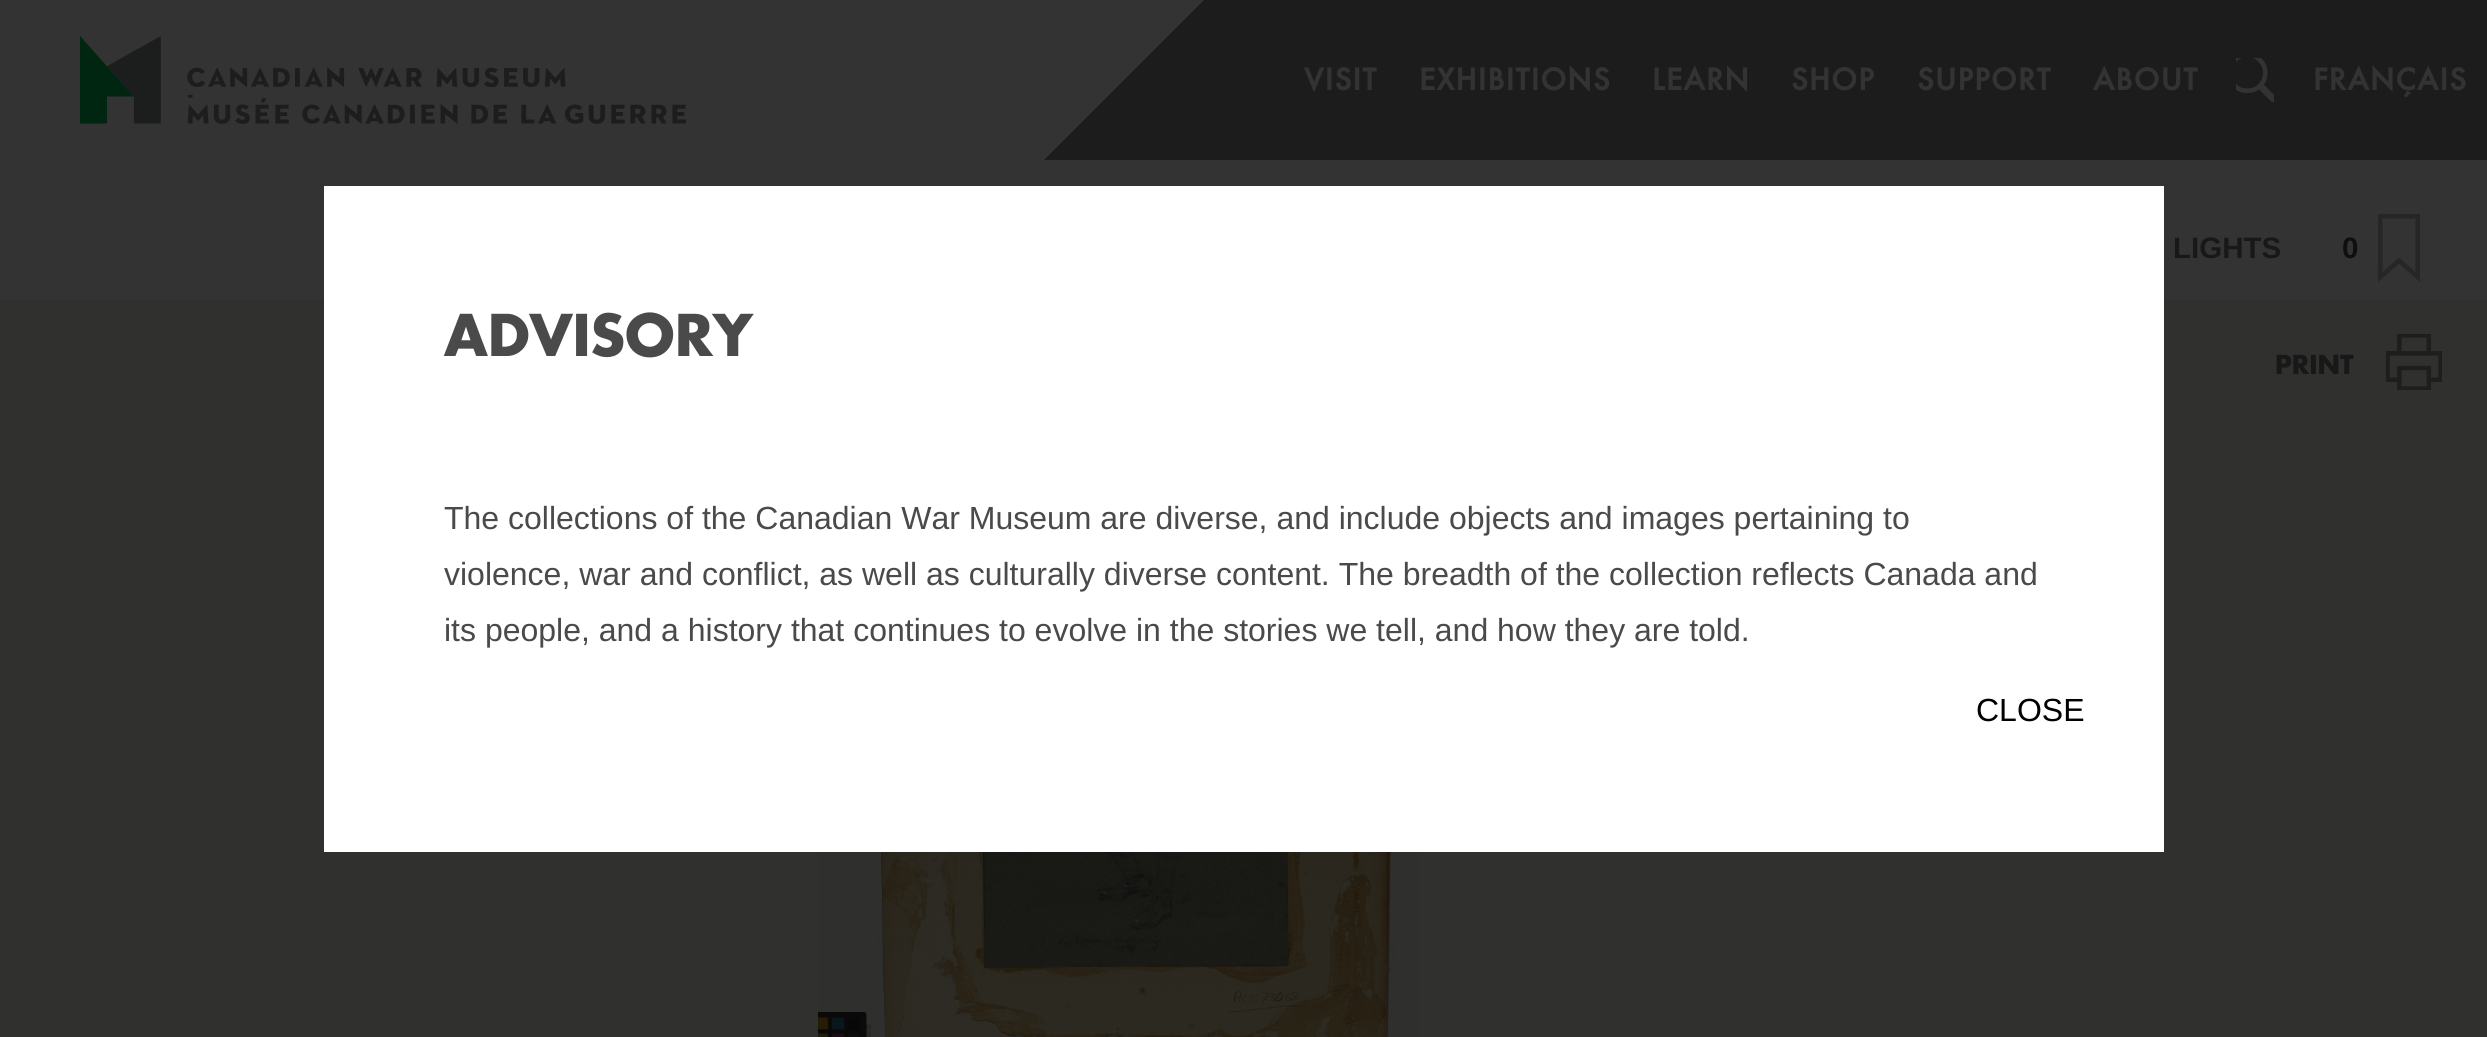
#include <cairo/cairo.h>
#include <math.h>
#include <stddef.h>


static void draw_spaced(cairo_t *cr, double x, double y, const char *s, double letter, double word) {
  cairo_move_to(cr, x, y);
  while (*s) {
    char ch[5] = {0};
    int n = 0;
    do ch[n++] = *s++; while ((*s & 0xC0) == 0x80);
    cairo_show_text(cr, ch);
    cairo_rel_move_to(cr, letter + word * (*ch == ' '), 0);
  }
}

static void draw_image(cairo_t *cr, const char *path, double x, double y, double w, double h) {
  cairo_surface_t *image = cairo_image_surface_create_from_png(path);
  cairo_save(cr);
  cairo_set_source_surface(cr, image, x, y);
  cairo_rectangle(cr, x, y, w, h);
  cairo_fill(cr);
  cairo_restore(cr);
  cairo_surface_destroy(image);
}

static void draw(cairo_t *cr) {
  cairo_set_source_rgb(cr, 51 / 255.0, 51 / 255.0, 51 / 255.0);
  cairo_paint(cr);
  draw_image(cr, "images/1.png", 80, 36, 606, 88);
  cairo_set_source_rgb(cr, 28 / 255.0, 28 / 255.0, 28 / 255.0);
  cairo_rectangle(cr, 1204, 0, 1283, 160);
  cairo_fill(cr);
  cairo_new_path(cr);
  cairo_move_to(cr, 1204, 160);
  cairo_line_to(cr, 1044, 160);
  cairo_line_to(cr, 1204, 0);
  cairo_close_path(cr);
  cairo_fill(cr);
  draw_image(cr, "images/2.png", 2236, 58, 38, 44);
  draw_image(cr, "images/3.png", 2378, 214, 42, 68);
  cairo_set_source_rgb(cr, 48 / 255.0, 48 / 255.0, 47 / 255.0);
  cairo_rectangle(cr, 0, 300, 2487, 737);
  cairo_fill(cr);
  draw_image(cr, "images/4.png", 2386, 334, 56, 56);
  draw_image(cr, "images/5.png", 817, 852, 601, 185);
  cairo_set_source_rgb(cr, 1, 1, 1);
  cairo_rectangle(cr, 324, 186, 1840, 666);
  cairo_fill(cr);
  cairo_select_font_face(cr, "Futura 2", CAIRO_FONT_SLANT_NORMAL, CAIRO_FONT_WEIGHT_BOLD);
  cairo_set_font_size(cr, 28.75);
  cairo_set_source_rgb(cr, 51 / 255.0, 51 / 255.0, 51 / 255.0);
  draw_spaced(cr, 1304, 90, "VISIT", 1.25, 0);
  draw_spaced(cr, 1419, 90, "EXHIBITIONS", 1.25, 0);
  draw_spaced(cr, 1652, 90, "LEARN", 1.25, 0);
  draw_spaced(cr, 1791, 90, "SHOP", 1.25, 0);
  draw_spaced(cr, 1917, 90, "SUPPORT", 1.25, 0);
  draw_spaced(cr, 2093, 90, "ABOUT", 1.25, 0);
  draw_spaced(cr, 2313, 90, "FRANÇAIS", 1.25, 0);
  cairo_select_font_face(cr, "Liberation Sans", CAIRO_FONT_SLANT_NORMAL, CAIRO_FONT_WEIGHT_BOLD);
  cairo_set_font_size(cr, 29.5);
  cairo_set_source_rgb(cr, 24 / 255.0, 24 / 255.0, 24 / 255.0);
  cairo_move_to(cr, 2173, 258);
  cairo_show_text(cr, "LIGHTS");
  cairo_set_source_rgb(cr, 15 / 255.0, 15 / 255.0, 15 / 255.0);
  cairo_move_to(cr, 2342, 258);
  cairo_show_text(cr, "0");
  cairo_select_font_face(cr, "Futura", CAIRO_FONT_SLANT_NORMAL, CAIRO_FONT_WEIGHT_BOLD);
  cairo_set_font_size(cr, 25.5);
  cairo_set_source_rgb(cr, 24 / 255.0, 24 / 255.0, 24 / 255.0);
  cairo_move_to(cr, 2275, 374);
  cairo_show_text(cr, "PRINT");
  cairo_set_font_size(cr, 56);
  cairo_set_source_rgb(cr, 74 / 255.0, 74 / 255.0, 74 / 255.0);
  cairo_move_to(cr, 444, 356);
  cairo_show_text(cr, "ADVISORY");
  cairo_select_font_face(cr, "Liberation Sans", CAIRO_FONT_SLANT_NORMAL, CAIRO_FONT_WEIGHT_NORMAL);
  cairo_set_font_size(cr, 32);
  cairo_move_to(cr, 444, 529);
  cairo_show_text(cr, "The collections of the Canadian War Museum are diverse, and include objects and images pertaining to");
  cairo_move_to(cr, 444, 585);
  cairo_show_text(cr, "violence, war and conflict, as well as culturally diverse content. The breadth of the collection reflects Canada and");
  cairo_move_to(cr, 444, 641);
  cairo_show_text(cr, "its people, and a history that continues to evolve in the stories we tell, and how they are told.");
  cairo_set_source_rgb(cr, 0, 0, 0);
  cairo_move_to(cr, 1976, 721);
  cairo_show_text(cr, "CLOSE");
}

int main(void) {
  cairo_surface_t *surface = cairo_image_surface_create(CAIRO_FORMAT_RGB24, 2487, 1037);
  cairo_t *cr = cairo_create(surface);
  cairo_font_options_t *options = cairo_font_options_create();
  cairo_font_options_set_hint_metrics(options, CAIRO_HINT_METRICS_OFF);
  cairo_font_options_set_hint_style(options, CAIRO_HINT_STYLE_NONE);
  cairo_set_font_options(cr, options);
  cairo_set_miter_limit(cr, 4);
  draw(cr);
  cairo_surface_write_to_png(surface, "out.png");
  cairo_font_options_destroy(options);
  cairo_destroy(cr);
  cairo_surface_destroy(surface);
  return 0;
}
